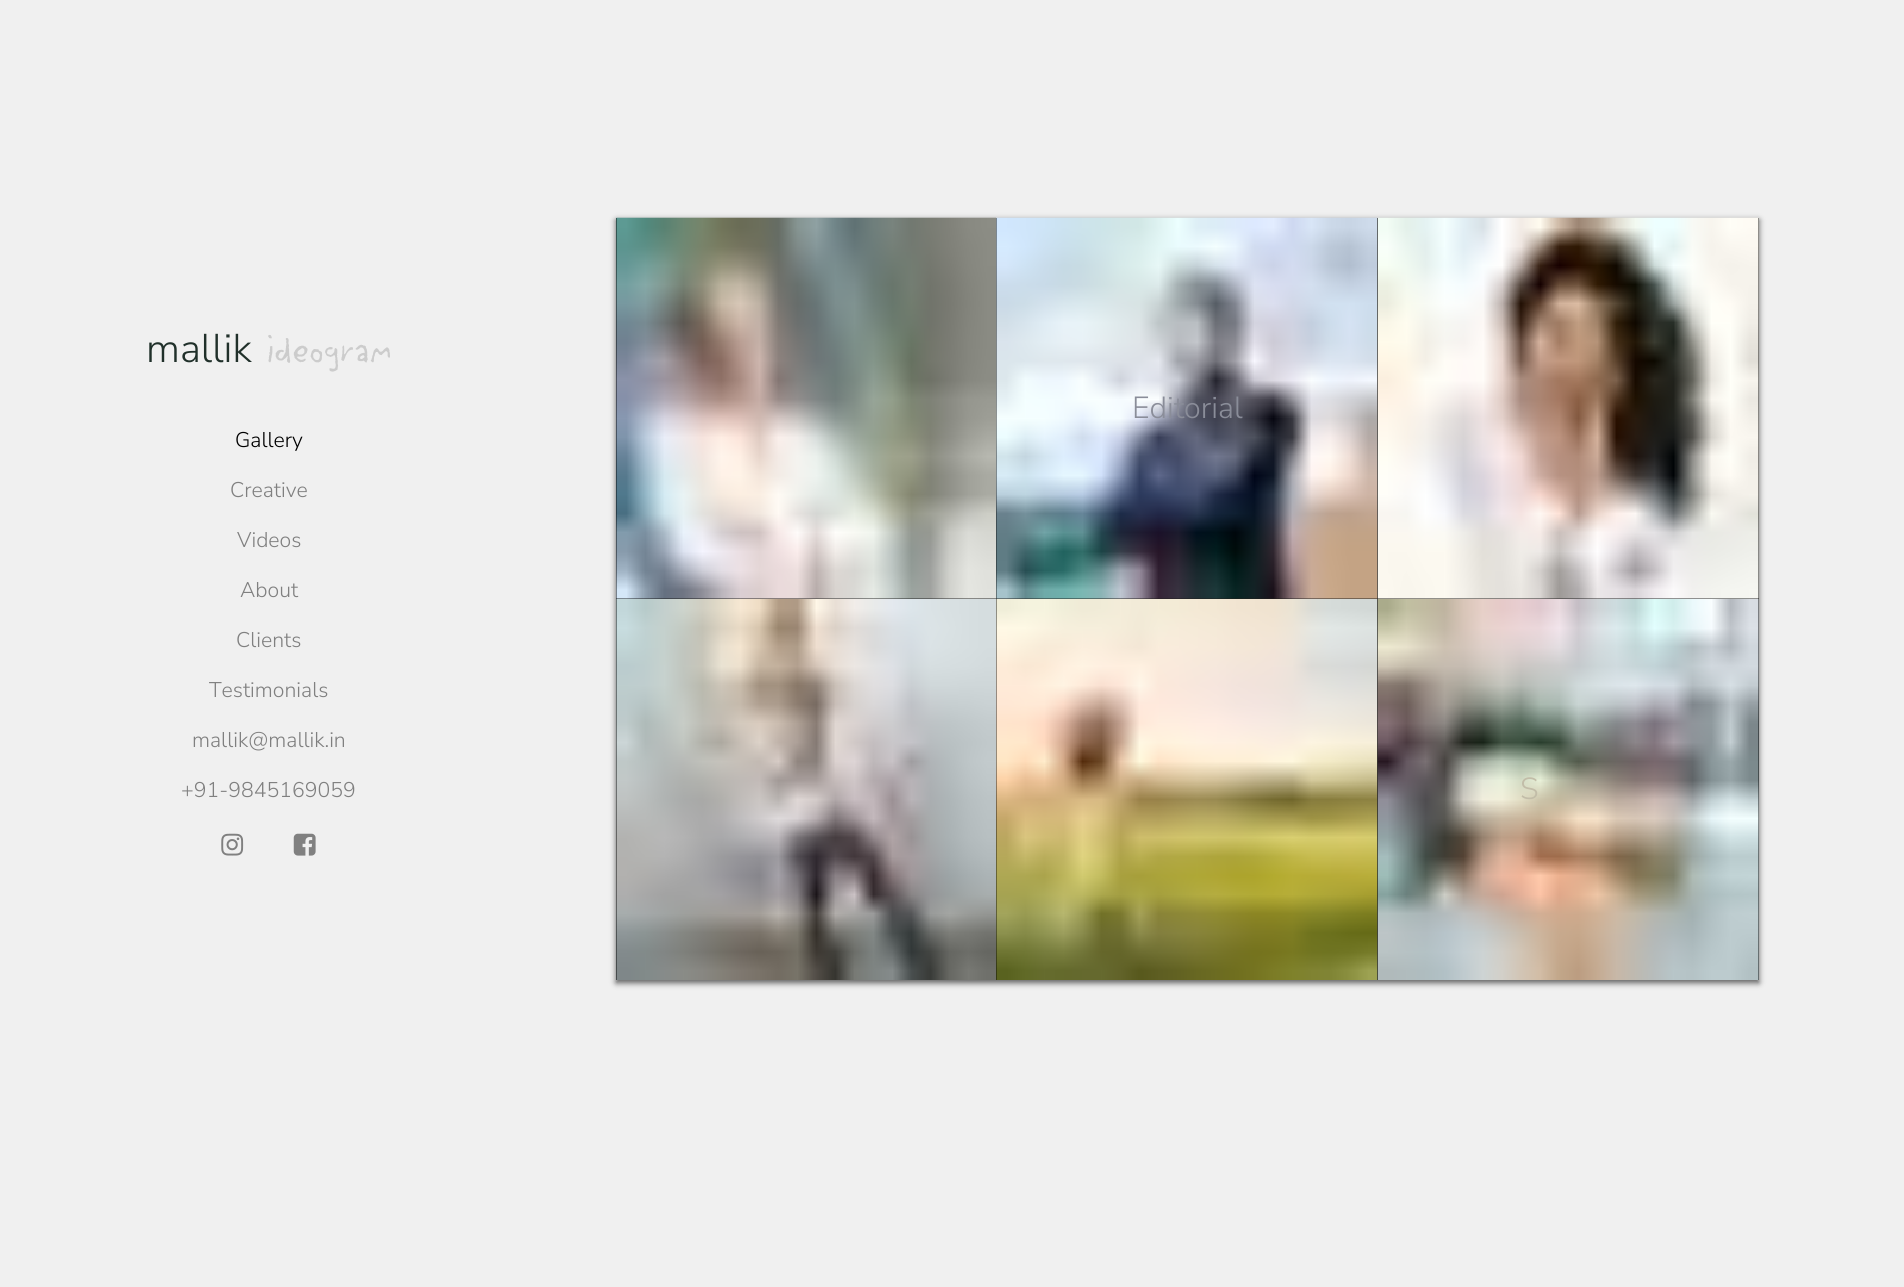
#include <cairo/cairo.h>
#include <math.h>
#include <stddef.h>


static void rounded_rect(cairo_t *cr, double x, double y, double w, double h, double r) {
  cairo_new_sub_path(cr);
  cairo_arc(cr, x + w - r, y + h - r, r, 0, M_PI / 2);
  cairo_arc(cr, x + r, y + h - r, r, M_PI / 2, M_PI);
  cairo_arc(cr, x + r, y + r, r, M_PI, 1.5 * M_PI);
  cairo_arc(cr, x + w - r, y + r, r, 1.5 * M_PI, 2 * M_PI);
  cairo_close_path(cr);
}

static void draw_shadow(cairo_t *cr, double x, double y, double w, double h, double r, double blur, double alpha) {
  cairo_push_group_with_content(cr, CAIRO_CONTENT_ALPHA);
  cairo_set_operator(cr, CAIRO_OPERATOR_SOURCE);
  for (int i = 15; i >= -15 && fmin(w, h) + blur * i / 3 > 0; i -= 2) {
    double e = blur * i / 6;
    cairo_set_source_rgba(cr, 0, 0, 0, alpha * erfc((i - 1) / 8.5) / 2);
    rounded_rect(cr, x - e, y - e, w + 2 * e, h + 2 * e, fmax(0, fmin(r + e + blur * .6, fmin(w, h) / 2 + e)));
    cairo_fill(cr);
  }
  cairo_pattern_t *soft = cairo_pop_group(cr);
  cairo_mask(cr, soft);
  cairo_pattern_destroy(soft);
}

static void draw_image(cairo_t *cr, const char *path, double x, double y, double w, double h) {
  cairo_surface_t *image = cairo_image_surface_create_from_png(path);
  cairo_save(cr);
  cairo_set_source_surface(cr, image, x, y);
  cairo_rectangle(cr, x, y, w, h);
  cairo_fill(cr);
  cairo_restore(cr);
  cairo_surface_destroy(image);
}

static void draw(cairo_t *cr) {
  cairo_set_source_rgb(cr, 240 / 255.0, 240 / 255.0, 240 / 255.0);
  cairo_paint(cr);
  draw_image(cr, "images/1.png", 221, 833, 23, 23);
  draw_image(cr, "images/2.png", 293, 833, 23, 23);
  cairo_set_source_rgb(cr, 96 / 255.0, 96 / 255.0, 96 / 255.0);
  draw_shadow(cr, 616, 220, 1143, 763, 0, 3, 1);
  cairo_set_source_rgb(cr, 0, 0, 0);
  cairo_rectangle(cr, 616, 218, 1143, 762);
  cairo_fill(cr);
  draw_image(cr, "images/3.png", 616, 217, 381, 382);
  draw_image(cr, "images/4.png", 996, 217, 382, 382);
  draw_image(cr, "images/5.png", 1377, 217, 382, 382);
  draw_image(cr, "images/6.png", 616, 598, 381, 382);
  draw_image(cr, "images/7.png", 996, 598, 382, 382);
  draw_image(cr, "images/8.png", 1377, 598, 382, 382);
  cairo_select_font_face(cr, "Nunito Sans Light", CAIRO_FONT_SLANT_NORMAL, CAIRO_FONT_WEIGHT_NORMAL);
  cairo_set_font_size(cr, 40);
  cairo_set_source_rgb(cr, 32 / 255.0, 48 / 255.0, 42 / 255.0);
  cairo_move_to(cr, 146, 362);
  cairo_show_text(cr, "mallik");
  cairo_select_font_face(cr, "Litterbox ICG", CAIRO_FONT_SLANT_NORMAL, CAIRO_FONT_WEIGHT_NORMAL);
  cairo_set_source_rgb(cr, 204 / 255.0, 204 / 255.0, 204 / 255.0);
  cairo_move_to(cr, 266, 362);
  cairo_show_text(cr, "ideogram");
  cairo_select_font_face(cr, "Nunito Sans Light", CAIRO_FONT_SLANT_NORMAL, CAIRO_FONT_WEIGHT_NORMAL);
  cairo_set_font_size(cr, 21.25);
  cairo_set_source_rgb(cr, 0, 0, 0);
  cairo_move_to(cr, 235, 447);
  cairo_show_text(cr, "Gallery");
  cairo_set_source_rgb(cr, 128 / 255.0, 128 / 255.0, 128 / 255.0);
  cairo_move_to(cr, 230, 497);
  cairo_show_text(cr, "Creative");
  cairo_move_to(cr, 237, 547);
  cairo_show_text(cr, "Videos");
  cairo_move_to(cr, 240, 597);
  cairo_show_text(cr, "About");
  cairo_move_to(cr, 236, 647);
  cairo_show_text(cr, "Clients");
  cairo_move_to(cr, 209, 697);
  cairo_show_text(cr, "Testimonials");
  cairo_move_to(cr, 192, 747);
  cairo_show_text(cr, "mallik@mallik.in");
  cairo_move_to(cr, 181, 797);
  cairo_show_text(cr, "+91-9845169059");
  cairo_set_font_size(cr, 30.5);
  cairo_set_source_rgb(cr, 138 / 255.0, 141 / 255.0, 153 / 255.0);
  cairo_move_to(cr, 1132, 418);
  cairo_show_text(cr, "Editorial");
  cairo_set_source_rgb(cr, 194 / 255.0, 189 / 255.0, 168 / 255.0);
  cairo_move_to(cr, 1520, 799);
  cairo_show_text(cr, "S");
}

int main(void) {
  cairo_surface_t *surface = cairo_image_surface_create(CAIRO_FORMAT_RGB24, 1904, 1287);
  cairo_t *cr = cairo_create(surface);
  cairo_font_options_t *options = cairo_font_options_create();
  cairo_font_options_set_hint_metrics(options, CAIRO_HINT_METRICS_OFF);
  cairo_font_options_set_hint_style(options, CAIRO_HINT_STYLE_NONE);
  cairo_set_font_options(cr, options);
  cairo_set_miter_limit(cr, 4);
  draw(cr);
  cairo_surface_write_to_png(surface, "out.png");
  cairo_font_options_destroy(options);
  cairo_destroy(cr);
  cairo_surface_destroy(surface);
  return 0;
}
